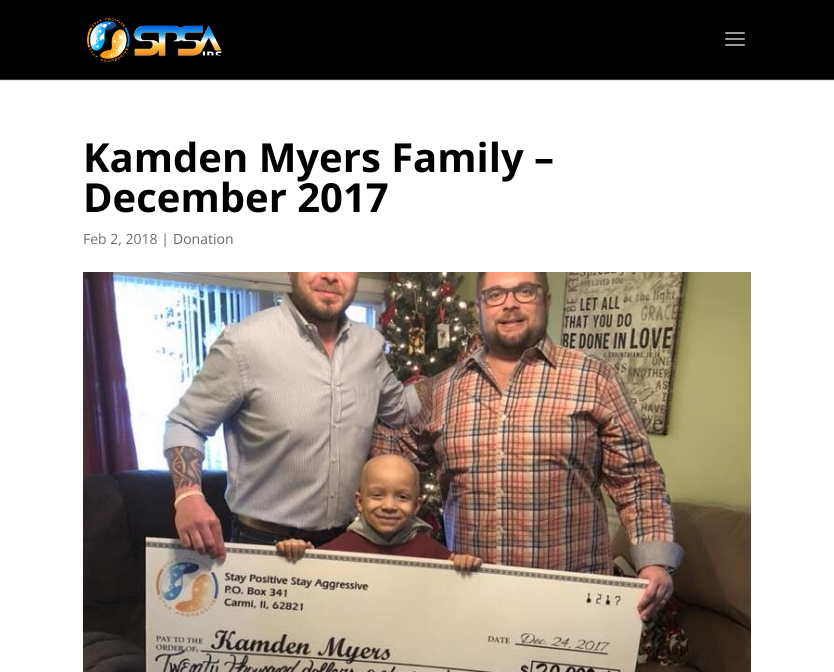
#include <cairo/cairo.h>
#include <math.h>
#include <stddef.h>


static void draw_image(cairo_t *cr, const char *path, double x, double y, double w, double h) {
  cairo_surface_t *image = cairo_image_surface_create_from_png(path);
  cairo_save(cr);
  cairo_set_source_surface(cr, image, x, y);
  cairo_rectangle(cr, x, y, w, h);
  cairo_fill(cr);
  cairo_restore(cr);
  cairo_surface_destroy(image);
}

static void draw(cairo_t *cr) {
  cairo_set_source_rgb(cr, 0, 0, 0);
  cairo_paint(cr);
  cairo_set_source_rgb(cr, 230 / 255.0, 230 / 255.0, 230 / 255.0);
  cairo_rectangle(cr, 0, 80, 834, 1);
  cairo_fill(cr);
  draw_image(cr, "images/1.png", 87, 18, 135, 44);
  draw_image(cr, "images/2.png", 725, 32, 20, 14);
  cairo_set_source_rgb(cr, 1, 1, 1);
  cairo_rectangle(cr, 0, 81, 834, 591);
  cairo_fill(cr);
  cairo_set_source_rgb(cr, 51 / 255.0, 51 / 255.0, 51 / 255.0);
  cairo_rectangle(cr, 0, 79, 834, 1);
  cairo_fill(cr);
  draw_image(cr, "images/3.png", 83, 272, 668, 400);
  cairo_select_font_face(cr, "Open Sans", CAIRO_FONT_SLANT_NORMAL, CAIRO_FONT_WEIGHT_BOLD);
  cairo_set_font_size(cr, 40);
  cairo_set_source_rgb(cr, 0, 0, 0);
  cairo_move_to(cr, 83, 172);
  cairo_show_text(cr, "Kamden Myers Family –");
  cairo_move_to(cr, 83, 212);
  cairo_show_text(cr, "December 2017");
  cairo_select_font_face(cr, "Open Sans", CAIRO_FONT_SLANT_NORMAL, CAIRO_FONT_WEIGHT_NORMAL);
  cairo_set_font_size(cr, 14);
  cairo_set_source_rgb(cr, 112 / 255.0, 112 / 255.0, 112 / 255.0);
  cairo_move_to(cr, 83, 244);
  cairo_show_text(cr, "Feb 2, 2018 |");
  cairo_set_source_rgb(cr, 102 / 255.0, 102 / 255.0, 102 / 255.0);
  cairo_move_to(cr, 173, 244);
  cairo_show_text(cr, "Donation");
}

int main(void) {
  cairo_surface_t *surface = cairo_image_surface_create(CAIRO_FORMAT_RGB24, 834, 672);
  cairo_t *cr = cairo_create(surface);
  cairo_font_options_t *options = cairo_font_options_create();
  cairo_font_options_set_hint_metrics(options, CAIRO_HINT_METRICS_OFF);
  cairo_font_options_set_hint_style(options, CAIRO_HINT_STYLE_NONE);
  cairo_set_font_options(cr, options);
  cairo_set_miter_limit(cr, 4);
  draw(cr);
  cairo_surface_write_to_png(surface, "out.png");
  cairo_font_options_destroy(options);
  cairo_destroy(cr);
  cairo_surface_destroy(surface);
  return 0;
}
